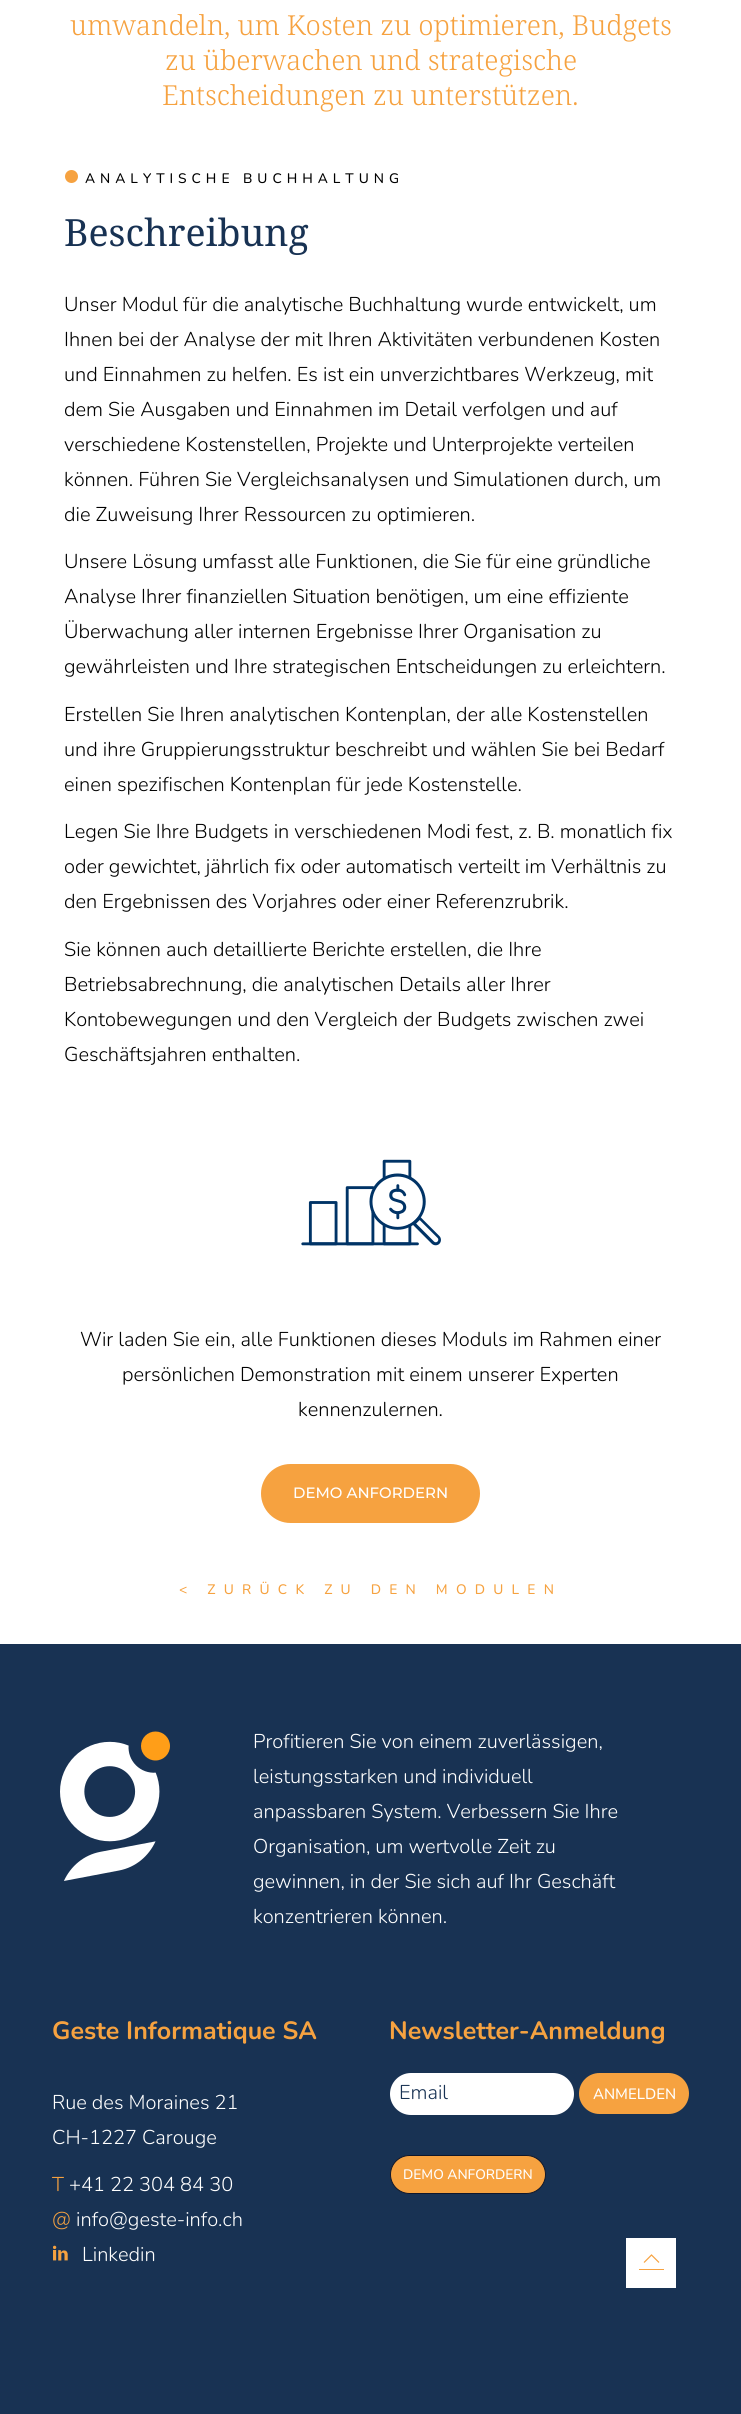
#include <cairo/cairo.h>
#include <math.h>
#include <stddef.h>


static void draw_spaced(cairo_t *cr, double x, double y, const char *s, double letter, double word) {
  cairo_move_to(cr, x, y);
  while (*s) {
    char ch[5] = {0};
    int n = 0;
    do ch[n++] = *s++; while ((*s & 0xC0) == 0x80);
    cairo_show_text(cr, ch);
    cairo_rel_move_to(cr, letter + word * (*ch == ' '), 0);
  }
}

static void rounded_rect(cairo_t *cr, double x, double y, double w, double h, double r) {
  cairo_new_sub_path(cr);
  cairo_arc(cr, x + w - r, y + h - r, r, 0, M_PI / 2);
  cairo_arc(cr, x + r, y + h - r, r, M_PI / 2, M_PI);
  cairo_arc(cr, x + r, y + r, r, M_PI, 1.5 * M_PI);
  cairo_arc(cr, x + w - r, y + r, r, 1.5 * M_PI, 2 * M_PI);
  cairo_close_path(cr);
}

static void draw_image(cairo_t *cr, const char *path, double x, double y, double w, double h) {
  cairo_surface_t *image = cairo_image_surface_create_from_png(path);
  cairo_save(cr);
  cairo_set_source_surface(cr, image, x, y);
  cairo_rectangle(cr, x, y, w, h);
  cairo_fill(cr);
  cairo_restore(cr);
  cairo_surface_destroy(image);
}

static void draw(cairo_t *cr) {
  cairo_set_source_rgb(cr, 1, 1, 1);
  cairo_paint(cr);
  cairo_set_source_rgb(cr, 246 / 255.0, 162 / 255.0, 64 / 255.0);
  cairo_arc(cr, 71.5, 176.5, 6.5, 0, 2 * M_PI);
  cairo_fill(cr);
  draw_image(cr, "images/1.png", 301, 1159, 140, 87);
  rounded_rect(cr, 261, 1464, 219, 59, 29.5);
  cairo_fill(cr);
  cairo_set_source_rgb(cr, 24 / 255.0, 50 / 255.0, 83 / 255.0);
  cairo_rectangle(cr, 0, 1644, 741, 770);
  cairo_fill(cr);
  draw_image(cr, "images/2.png", 60, 1731, 110, 150);
  draw_image(cr, "images/3.png", 53, 2245, 15, 16);
  cairo_set_source_rgb(cr, 1, 1, 1);
  rounded_rect(cr, 390, 2073, 184, 42, 21);
  cairo_fill(cr);
  cairo_set_source_rgb(cr, 246 / 255.0, 162 / 255.0, 64 / 255.0);
  rounded_rect(cr, 579, 2073, 110, 41, 20.5);
  cairo_fill(cr);
  rounded_rect(cr, 390.5, 2155.5, 155, 38, 19);
  cairo_fill_preserve(cr);
  cairo_set_source_rgb(cr, 15 / 255.0, 23 / 255.0, 43 / 255.0);
  cairo_set_line_width(cr, 1);
  cairo_stroke(cr);
  cairo_set_source_rgb(cr, 1, 1, 1);
  cairo_rectangle(cr, 626, 2238, 50, 50);
  cairo_fill(cr);
  cairo_new_path(cr);
  cairo_move_to(cr, 644, 2262.5);
  cairo_line_to(cr, 651.5, 2255);
  cairo_line_to(cr, 659, 2262.5);
  cairo_set_source_rgb(cr, 246 / 255.0, 162 / 255.0, 64 / 255.0);
  cairo_set_line_width(cr, 1.2);
  cairo_stroke(cr);
  cairo_rectangle(cr, 639, 2269, 25, 1);
  cairo_fill(cr);
  cairo_select_font_face(cr, "Noto Serif Light", CAIRO_FONT_SLANT_NORMAL, CAIRO_FONT_WEIGHT_NORMAL);
  cairo_set_font_size(cr, 27.5);
  cairo_move_to(cr, 70, 35);
  cairo_show_text(cr, "umwandeln, um Kosten zu optimieren, Budgets");
  cairo_move_to(cr, 165, 70);
  cairo_show_text(cr, "zu überwachen und strategische");
  cairo_move_to(cr, 162, 105);
  cairo_show_text(cr, "Entscheidungen zu unterstützen.");
  cairo_select_font_face(cr, "Nunito Medium", CAIRO_FONT_SLANT_NORMAL, CAIRO_FONT_WEIGHT_NORMAL);
  cairo_set_font_size(cr, 13.75);
  cairo_set_source_rgb(cr, 0, 0, 0);
  draw_spaced(cr, 85, 183, "ANALYTISCHE BUCHHALTUNG", 5, 0);
  cairo_select_font_face(cr, "Noto Serif", CAIRO_FONT_SLANT_NORMAL, CAIRO_FONT_WEIGHT_NORMAL);
  cairo_set_font_size(cr, 37.5);
  cairo_set_source_rgb(cr, 24 / 255.0, 50 / 255.0, 83 / 255.0);
  cairo_move_to(cr, 64, 246);
  cairo_show_text(cr, "Beschreibung");
  cairo_select_font_face(cr, "Nunito Light", CAIRO_FONT_SLANT_NORMAL, CAIRO_FONT_WEIGHT_NORMAL);
  cairo_set_font_size(cr, 20);
  cairo_set_source_rgb(cr, 0, 0, 0);
  cairo_move_to(cr, 64, 311);
  cairo_show_text(cr, "Unser Modul für die analytische Buchhaltung wurde entwickelt, um");
  cairo_move_to(cr, 64, 346);
  cairo_show_text(cr, "Ihnen bei der Analyse der mit Ihren Aktivitäten verbundenen Kosten");
  cairo_move_to(cr, 64, 381);
  cairo_show_text(cr, "und Einnahmen zu helfen. Es ist ein unverzichtbares Werkzeug, mit");
  cairo_move_to(cr, 64, 416);
  cairo_show_text(cr, "dem Sie Ausgaben und Einnahmen im Detail verfolgen und auf");
  cairo_move_to(cr, 64, 451);
  cairo_show_text(cr, "verschiedene Kostenstellen, Projekte und Unterprojekte verteilen");
  cairo_move_to(cr, 64, 486);
  cairo_show_text(cr, "können. Führen Sie Vergleichsanalysen und Simulationen durch, um");
  cairo_move_to(cr, 64, 521);
  cairo_show_text(cr, "die Zuweisung Ihrer Ressourcen zu optimieren.");
  cairo_move_to(cr, 64, 568);
  cairo_show_text(cr, "Unsere Lösung umfasst alle Funktionen, die Sie für eine gründliche");
  cairo_move_to(cr, 64, 603);
  cairo_show_text(cr, "Analyse Ihrer finanziellen Situation benötigen, um eine effiziente");
  cairo_move_to(cr, 64, 638);
  cairo_show_text(cr, "Überwachung aller internen Ergebnisse Ihrer Organisation zu");
  cairo_move_to(cr, 64, 673);
  cairo_show_text(cr, "gewährleisten und Ihre strategischen Entscheidungen zu erleichtern.");
  cairo_move_to(cr, 64, 721);
  cairo_show_text(cr, "Erstellen Sie Ihren analytischen Kontenplan, der alle Kostenstellen");
  cairo_move_to(cr, 64, 756);
  cairo_show_text(cr, "und ihre Gruppierungsstruktur beschreibt und wählen Sie bei Bedarf");
  cairo_move_to(cr, 64, 791);
  cairo_show_text(cr, "einen spezifischen Kontenplan für jede Kostenstelle.");
  cairo_move_to(cr, 64, 838);
  cairo_show_text(cr, "Legen Sie Ihre Budgets in verschiedenen Modi fest, z. B. monatlich fix");
  cairo_move_to(cr, 64, 873);
  cairo_show_text(cr, "oder gewichtet, jährlich fix oder automatisch verteilt im Verhältnis zu");
  cairo_move_to(cr, 64, 908);
  cairo_show_text(cr, "den Ergebnissen des Vorjahres oder einer Referenzrubrik.");
  cairo_move_to(cr, 64, 956);
  cairo_show_text(cr, "Sie können auch detaillierte Berichte erstellen, die Ihre");
  cairo_move_to(cr, 64, 991);
  cairo_show_text(cr, "Betriebsabrechnung, die analytischen Details aller Ihrer");
  cairo_move_to(cr, 64, 1026);
  cairo_show_text(cr, "Kontobewegungen und den Vergleich der Budgets zwischen zwei");
  cairo_move_to(cr, 64, 1061);
  cairo_show_text(cr, "Geschäftsjahren enthalten.");
  cairo_move_to(cr, 80, 1346);
  cairo_show_text(cr, "Wir laden Sie ein, alle Funktionen dieses Moduls im Rahmen einer");
  cairo_move_to(cr, 122, 1381);
  cairo_show_text(cr, "persönlichen Demonstration mit einem unserer Experten");
  cairo_move_to(cr, 298, 1416);
  cairo_show_text(cr, "kennenzulernen.");
  cairo_select_font_face(cr, "Montserrat Medium", CAIRO_FONT_SLANT_NORMAL, CAIRO_FONT_WEIGHT_NORMAL);
  cairo_set_font_size(cr, 15);
  cairo_set_source_rgb(cr, 1, 1, 1);
  cairo_move_to(cr, 293, 1498);
  cairo_show_text(cr, "DEMO ANFORDERN");
  cairo_select_font_face(cr, "Nunito Medium", CAIRO_FONT_SLANT_NORMAL, CAIRO_FONT_WEIGHT_NORMAL);
  cairo_set_font_size(cr, 13.75);
  cairo_set_source_rgb(cr, 246 / 255.0, 162 / 255.0, 64 / 255.0);
  draw_spaced(cr, 179, 1594, "< ZURÜCK ZU DEN MODULEN", 8.25, 0);
  cairo_select_font_face(cr, "Nunito Light", CAIRO_FONT_SLANT_NORMAL, CAIRO_FONT_WEIGHT_NORMAL);
  cairo_set_font_size(cr, 20);
  cairo_set_source_rgb(cr, 1, 1, 1);
  cairo_move_to(cr, 253, 1748);
  cairo_show_text(cr, "Profitieren Sie von einem zuverlässigen,");
  cairo_move_to(cr, 253, 1783);
  cairo_show_text(cr, "leistungsstarken und individuell");
  cairo_move_to(cr, 253, 1818);
  cairo_show_text(cr, "anpassbaren System. Verbessern Sie Ihre");
  cairo_move_to(cr, 253, 1853);
  cairo_show_text(cr, "Organisation, um wertvolle Zeit zu");
  cairo_move_to(cr, 253, 1888);
  cairo_show_text(cr, "gewinnen, in der Sie sich auf Ihr Geschäft");
  cairo_move_to(cr, 253, 1923);
  cairo_show_text(cr, "konzentrieren können.");
  cairo_select_font_face(cr, "Nunito", CAIRO_FONT_SLANT_NORMAL, CAIRO_FONT_WEIGHT_BOLD);
  cairo_set_font_size(cr, 25);
  cairo_set_source_rgb(cr, 246 / 255.0, 162 / 255.0, 64 / 255.0);
  cairo_move_to(cr, 52, 2039);
  cairo_show_text(cr, "Geste Informatique SA");
  cairo_select_font_face(cr, "Nunito Light", CAIRO_FONT_SLANT_NORMAL, CAIRO_FONT_WEIGHT_NORMAL);
  cairo_set_font_size(cr, 20);
  cairo_set_source_rgb(cr, 1, 1, 1);
  cairo_move_to(cr, 52, 2109);
  cairo_show_text(cr, "Rue des Moraines 21");
  cairo_move_to(cr, 52, 2144);
  cairo_show_text(cr, "CH-1227 Carouge");
  cairo_set_source_rgb(cr, 246 / 255.0, 162 / 255.0, 64 / 255.0);
  cairo_move_to(cr, 52, 2191);
  cairo_show_text(cr, "T");
  cairo_set_source_rgb(cr, 1, 1, 1);
  cairo_move_to(cr, 69, 2191);
  cairo_show_text(cr, "+41 22 304 84 30");
  cairo_set_source_rgb(cr, 246 / 255.0, 162 / 255.0, 64 / 255.0);
  cairo_move_to(cr, 52, 2226);
  cairo_show_text(cr, "@");
  cairo_set_source_rgb(cr, 1, 1, 1);
  cairo_move_to(cr, 76, 2226);
  cairo_show_text(cr, "info@geste-info.ch");
  cairo_move_to(cr, 82, 2261);
  cairo_show_text(cr, "Linkedin");
  cairo_select_font_face(cr, "Nunito", CAIRO_FONT_SLANT_NORMAL, CAIRO_FONT_WEIGHT_BOLD);
  cairo_set_font_size(cr, 25);
  cairo_set_source_rgb(cr, 246 / 255.0, 162 / 255.0, 64 / 255.0);
  cairo_move_to(cr, 389, 2039);
  cairo_show_text(cr, "Newsletter-Anmeldung");
  cairo_select_font_face(cr, "Nunito Light", CAIRO_FONT_SLANT_NORMAL, CAIRO_FONT_WEIGHT_NORMAL);
  cairo_set_font_size(cr, 20);
  cairo_set_source_rgb(cr, 24 / 255.0, 50 / 255.0, 83 / 255.0);
  cairo_move_to(cr, 399, 2099);
  cairo_show_text(cr, "Email");
  cairo_select_font_face(cr, "Nunito Medium", CAIRO_FONT_SLANT_NORMAL, CAIRO_FONT_WEIGHT_NORMAL);
  cairo_set_font_size(cr, 15);
  cairo_set_source_rgb(cr, 1, 1, 1);
  cairo_move_to(cr, 593, 2099);
  cairo_show_text(cr, "ANMELDEN");
  cairo_set_font_size(cr, 13.75);
  cairo_move_to(cr, 403, 2179);
  cairo_show_text(cr, "DEMO ANFORDERN");
}

int main(void) {
  cairo_surface_t *surface = cairo_image_surface_create(CAIRO_FORMAT_RGB24, 741, 2414);
  cairo_t *cr = cairo_create(surface);
  cairo_font_options_t *options = cairo_font_options_create();
  cairo_font_options_set_hint_metrics(options, CAIRO_HINT_METRICS_OFF);
  cairo_font_options_set_hint_style(options, CAIRO_HINT_STYLE_NONE);
  cairo_set_font_options(cr, options);
  cairo_set_miter_limit(cr, 4);
  draw(cr);
  cairo_surface_write_to_png(surface, "out.png");
  cairo_font_options_destroy(options);
  cairo_destroy(cr);
  cairo_surface_destroy(surface);
  return 0;
}
